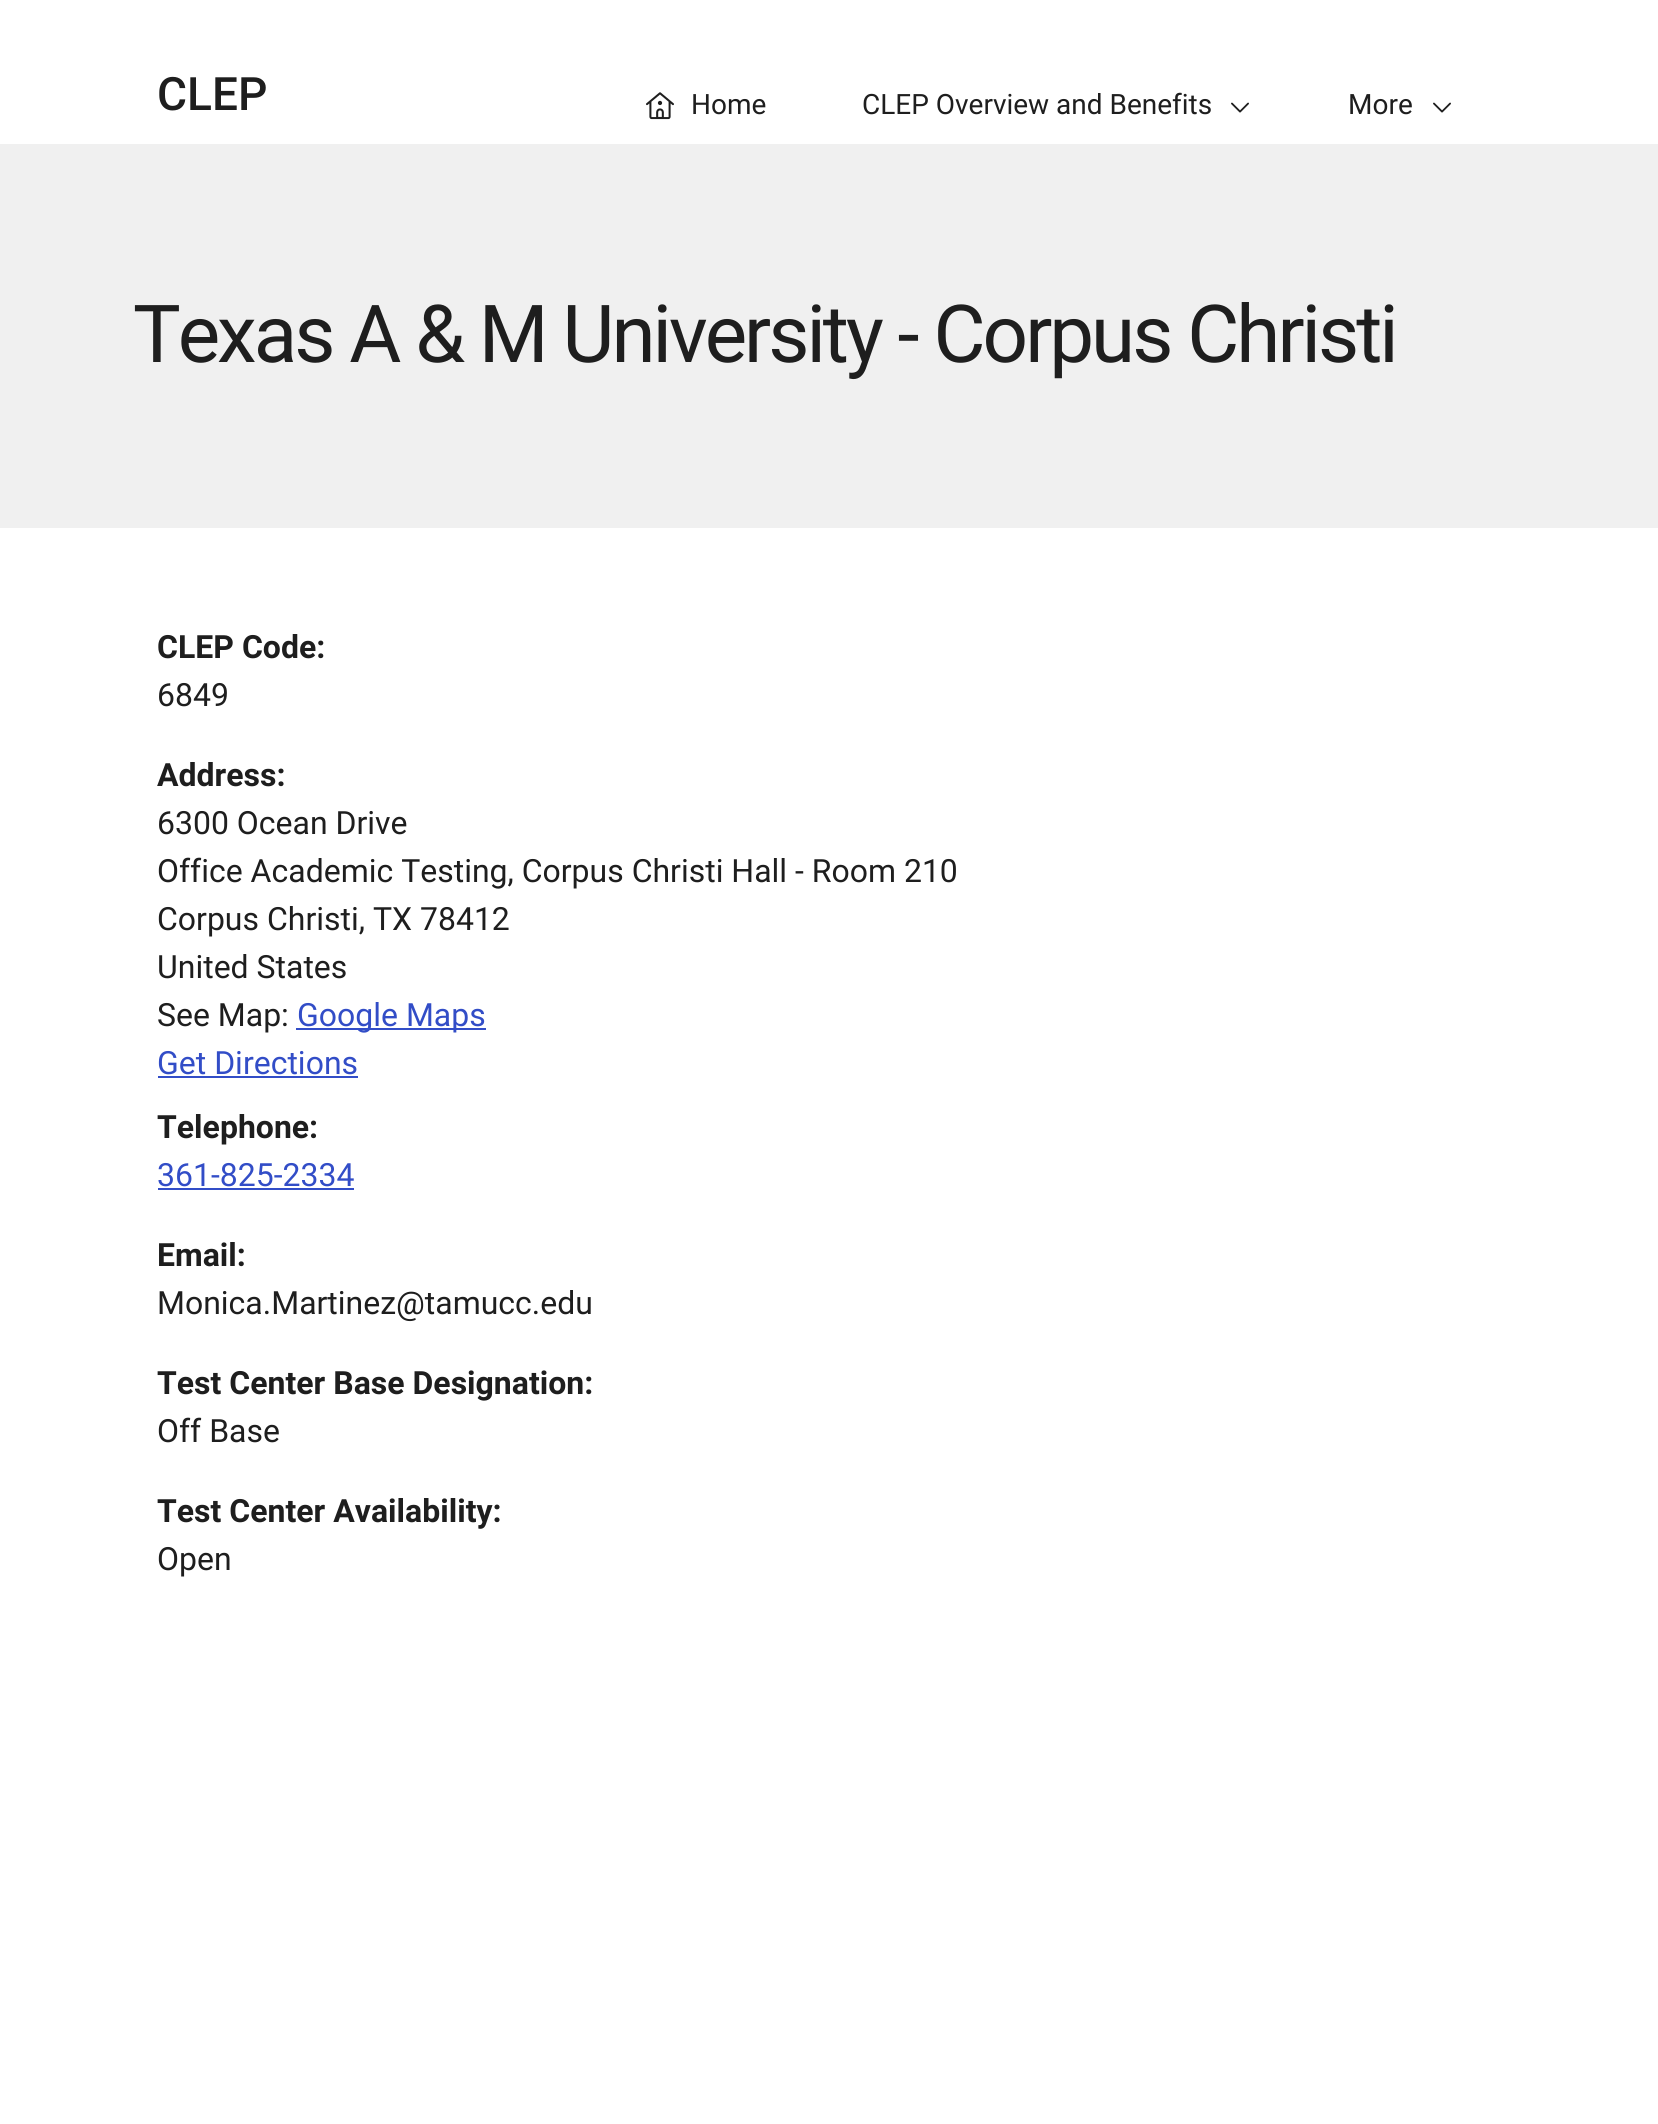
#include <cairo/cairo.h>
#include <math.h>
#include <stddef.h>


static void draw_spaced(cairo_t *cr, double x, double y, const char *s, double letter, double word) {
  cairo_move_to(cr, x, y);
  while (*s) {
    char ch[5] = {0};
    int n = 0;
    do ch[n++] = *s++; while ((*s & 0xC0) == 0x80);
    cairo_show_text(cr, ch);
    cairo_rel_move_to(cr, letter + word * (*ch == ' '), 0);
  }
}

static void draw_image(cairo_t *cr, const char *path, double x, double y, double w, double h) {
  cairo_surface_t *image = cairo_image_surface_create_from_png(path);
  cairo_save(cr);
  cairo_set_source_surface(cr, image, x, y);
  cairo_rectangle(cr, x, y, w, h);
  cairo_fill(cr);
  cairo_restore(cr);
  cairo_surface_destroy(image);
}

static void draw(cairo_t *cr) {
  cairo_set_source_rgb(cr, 1, 1, 1);
  cairo_paint(cr);
  draw_image(cr, "images/1.png", 646, 92, 28, 28);
  draw_image(cr, "images/2.png", 1231, 102, 18, 11);
  draw_image(cr, "images/2.png", 1433, 102, 18, 11);
  cairo_set_source_rgb(cr, 240 / 255.0, 240 / 255.0, 240 / 255.0);
  cairo_rectangle(cr, 0, 144, 1658, 384);
  cairo_fill(cr);
  cairo_set_source_rgb(cr, 50 / 255.0, 77 / 255.0, 199 / 255.0);
  cairo_rectangle(cr, 296, 1028, 190, 2);
  cairo_fill(cr);
  cairo_rectangle(cr, 158, 1076, 200, 2);
  cairo_fill(cr);
  cairo_rectangle(cr, 158, 1188, 196, 2);
  cairo_fill(cr);
  cairo_select_font_face(cr, "Roboto Medium", CAIRO_FONT_SLANT_NORMAL, CAIRO_FONT_WEIGHT_NORMAL);
  cairo_set_font_size(cr, 46);
  cairo_set_source_rgb(cr, 30 / 255.0, 30 / 255.0, 30 / 255.0);
  cairo_move_to(cr, 157, 110);
  cairo_show_text(cr, "CLEP");
  cairo_select_font_face(cr, "Roboto", CAIRO_FONT_SLANT_NORMAL, CAIRO_FONT_WEIGHT_NORMAL);
  cairo_set_font_size(cr, 28);
  cairo_move_to(cr, 691, 114);
  cairo_show_text(cr, "Home");
  cairo_move_to(cr, 862, 114);
  cairo_show_text(cr, "CLEP Overview and Benefits");
  cairo_move_to(cr, 1348, 114);
  cairo_show_text(cr, "More");
  cairo_set_font_size(cr, 80);
  draw_spaced(cr, 133, 362, "Texas A & M University - Corpus Christi", -3, 0);
  cairo_select_font_face(cr, "Roboto", CAIRO_FONT_SLANT_NORMAL, CAIRO_FONT_WEIGHT_BOLD);
  cairo_set_font_size(cr, 32);
  cairo_move_to(cr, 157, 658);
  cairo_show_text(cr, "CLEP Code:");
  cairo_select_font_face(cr, "Roboto", CAIRO_FONT_SLANT_NORMAL, CAIRO_FONT_WEIGHT_NORMAL);
  cairo_move_to(cr, 157, 706);
  cairo_show_text(cr, "6849");
  cairo_select_font_face(cr, "Roboto", CAIRO_FONT_SLANT_NORMAL, CAIRO_FONT_WEIGHT_BOLD);
  cairo_move_to(cr, 157, 786);
  cairo_show_text(cr, "Address:");
  cairo_select_font_face(cr, "Roboto", CAIRO_FONT_SLANT_NORMAL, CAIRO_FONT_WEIGHT_NORMAL);
  cairo_move_to(cr, 157, 834);
  cairo_show_text(cr, "6300 Ocean Drive");
  cairo_move_to(cr, 157, 882);
  cairo_show_text(cr, "Office Academic Testing, Corpus Christi Hall - Room 210");
  cairo_move_to(cr, 157, 930);
  cairo_show_text(cr, "Corpus Christi, TX 78412");
  cairo_move_to(cr, 157, 978);
  cairo_show_text(cr, "United States");
  cairo_move_to(cr, 157, 1026);
  cairo_show_text(cr, "See Map:");
  cairo_set_source_rgb(cr, 50 / 255.0, 77 / 255.0, 199 / 255.0);
  cairo_move_to(cr, 297, 1026);
  cairo_show_text(cr, "Google Maps");
  cairo_move_to(cr, 157, 1074);
  cairo_show_text(cr, "Get Directions");
  cairo_select_font_face(cr, "Roboto", CAIRO_FONT_SLANT_NORMAL, CAIRO_FONT_WEIGHT_BOLD);
  cairo_set_source_rgb(cr, 30 / 255.0, 30 / 255.0, 30 / 255.0);
  cairo_move_to(cr, 157, 1138);
  cairo_show_text(cr, "Telephone:");
  cairo_select_font_face(cr, "Roboto", CAIRO_FONT_SLANT_NORMAL, CAIRO_FONT_WEIGHT_NORMAL);
  cairo_set_source_rgb(cr, 50 / 255.0, 77 / 255.0, 199 / 255.0);
  cairo_move_to(cr, 157, 1186);
  cairo_show_text(cr, "361-825-2334");
  cairo_select_font_face(cr, "Roboto", CAIRO_FONT_SLANT_NORMAL, CAIRO_FONT_WEIGHT_BOLD);
  cairo_set_source_rgb(cr, 30 / 255.0, 30 / 255.0, 30 / 255.0);
  cairo_move_to(cr, 157, 1266);
  cairo_show_text(cr, "Email:");
  cairo_select_font_face(cr, "Roboto", CAIRO_FONT_SLANT_NORMAL, CAIRO_FONT_WEIGHT_NORMAL);
  cairo_move_to(cr, 157, 1314);
  cairo_show_text(cr, "Monica.Martinez@tamucc.edu");
  cairo_select_font_face(cr, "Roboto", CAIRO_FONT_SLANT_NORMAL, CAIRO_FONT_WEIGHT_BOLD);
  cairo_move_to(cr, 157, 1394);
  cairo_show_text(cr, "Test Center Base Designation:");
  cairo_select_font_face(cr, "Roboto", CAIRO_FONT_SLANT_NORMAL, CAIRO_FONT_WEIGHT_NORMAL);
  cairo_move_to(cr, 157, 1442);
  cairo_show_text(cr, "Off Base");
  cairo_select_font_face(cr, "Roboto", CAIRO_FONT_SLANT_NORMAL, CAIRO_FONT_WEIGHT_BOLD);
  cairo_move_to(cr, 157, 1522);
  cairo_show_text(cr, "Test Center Availability:");
  cairo_select_font_face(cr, "Roboto", CAIRO_FONT_SLANT_NORMAL, CAIRO_FONT_WEIGHT_NORMAL);
  cairo_move_to(cr, 157, 1570);
  cairo_show_text(cr, "Open");
}

int main(void) {
  cairo_surface_t *surface = cairo_image_surface_create(CAIRO_FORMAT_RGB24, 1658, 2124);
  cairo_t *cr = cairo_create(surface);
  cairo_font_options_t *options = cairo_font_options_create();
  cairo_font_options_set_hint_metrics(options, CAIRO_HINT_METRICS_OFF);
  cairo_font_options_set_hint_style(options, CAIRO_HINT_STYLE_NONE);
  cairo_set_font_options(cr, options);
  cairo_set_miter_limit(cr, 4);
  draw(cr);
  cairo_surface_write_to_png(surface, "out.png");
  cairo_font_options_destroy(options);
  cairo_destroy(cr);
  cairo_surface_destroy(surface);
  return 0;
}
